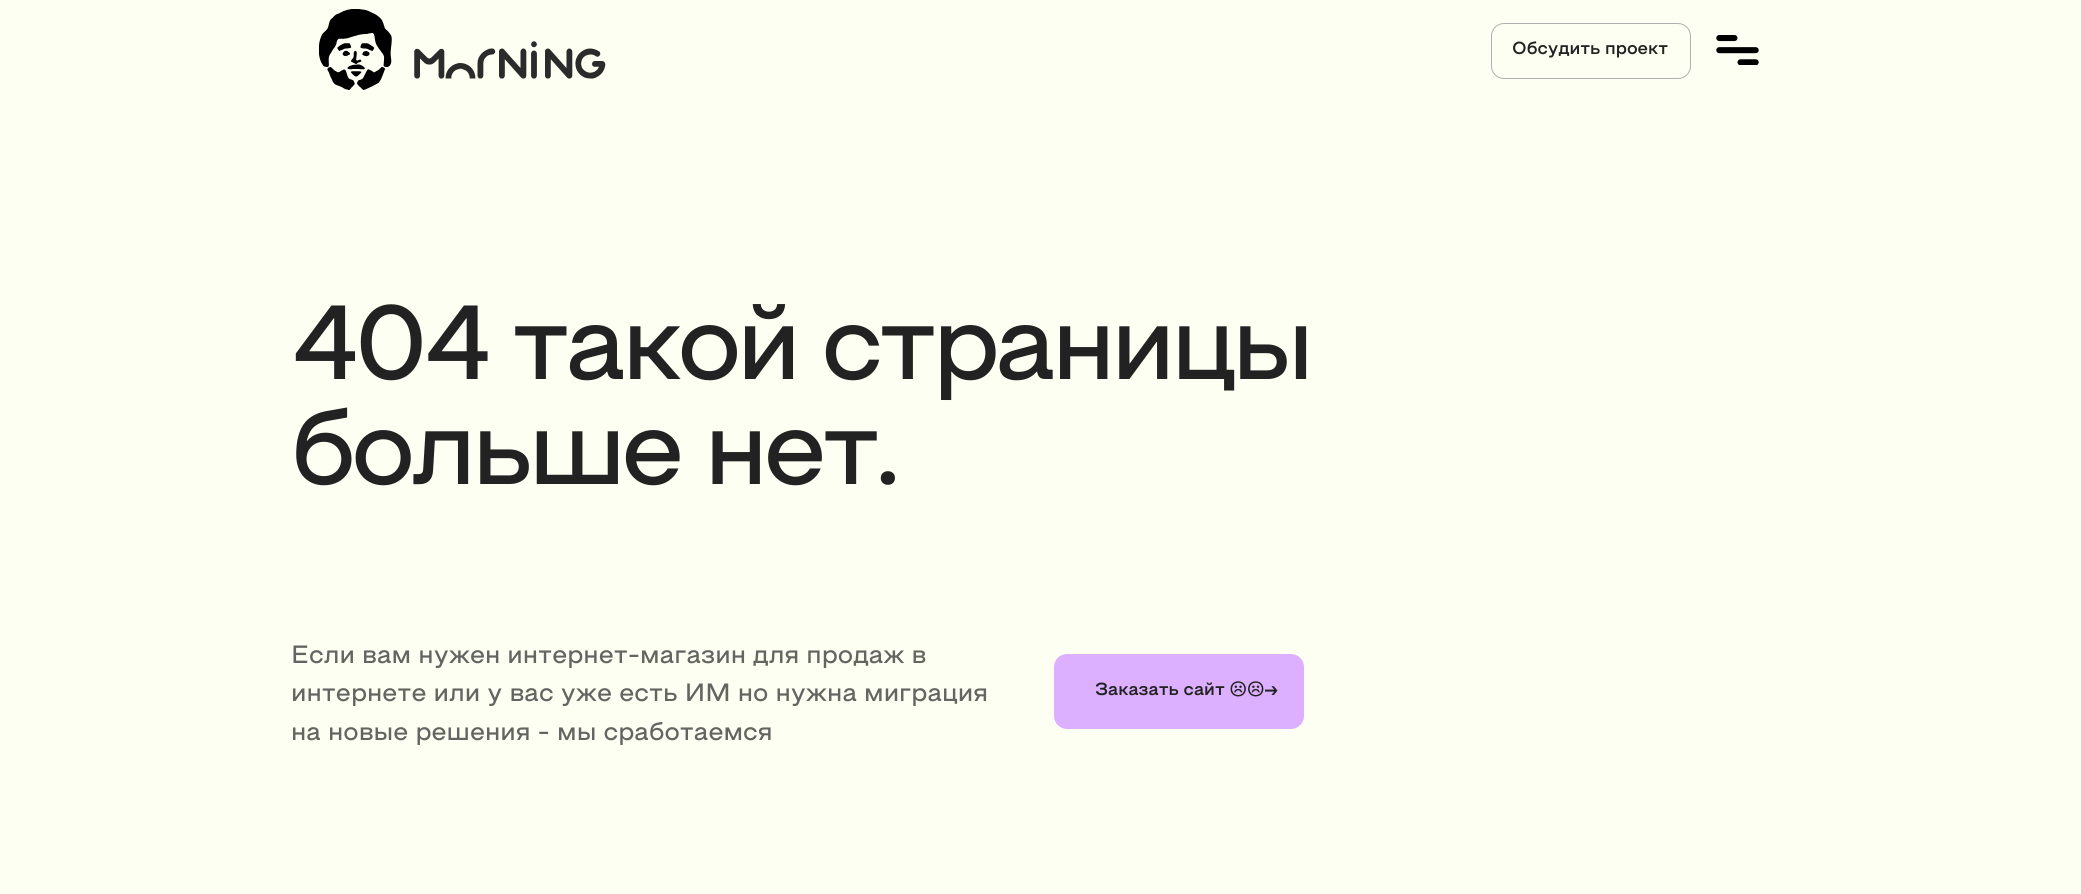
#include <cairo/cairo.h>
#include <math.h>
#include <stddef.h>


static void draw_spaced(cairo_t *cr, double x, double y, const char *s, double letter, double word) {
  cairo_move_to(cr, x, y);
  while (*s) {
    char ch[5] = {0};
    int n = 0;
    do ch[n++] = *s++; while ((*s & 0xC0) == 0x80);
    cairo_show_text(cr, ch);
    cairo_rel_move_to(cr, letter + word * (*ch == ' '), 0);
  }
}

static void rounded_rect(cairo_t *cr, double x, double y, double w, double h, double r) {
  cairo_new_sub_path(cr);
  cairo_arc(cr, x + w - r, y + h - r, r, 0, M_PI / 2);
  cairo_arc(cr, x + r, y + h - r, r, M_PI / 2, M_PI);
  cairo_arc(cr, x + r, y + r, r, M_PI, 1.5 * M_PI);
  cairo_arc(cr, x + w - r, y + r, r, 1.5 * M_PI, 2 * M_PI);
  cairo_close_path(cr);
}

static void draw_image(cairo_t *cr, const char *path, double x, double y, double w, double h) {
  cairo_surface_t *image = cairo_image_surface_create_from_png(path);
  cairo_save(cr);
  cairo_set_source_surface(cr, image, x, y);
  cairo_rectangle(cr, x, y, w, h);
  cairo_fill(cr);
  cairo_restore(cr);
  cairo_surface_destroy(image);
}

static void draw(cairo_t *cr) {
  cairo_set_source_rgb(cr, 253 / 255.0, 1, 242 / 255.0);
  cairo_paint(cr);
  draw_image(cr, "images/1.png", 319, 9, 287, 81);
  rounded_rect(cr, 1491.5, 23.5, 199, 55, 12.5);
  cairo_set_source_rgb(cr, 176 / 255.0, 176 / 255.0, 176 / 255.0);
  cairo_set_line_width(cr, 1);
  cairo_stroke(cr);
  draw_image(cr, "images/2.png", 1716, 35, 43, 30);
  cairo_set_source_rgb(cr, 221 / 255.0, 175 / 255.0, 1);
  rounded_rect(cr, 1054, 654, 250, 75, 13);
  cairo_fill(cr);
  cairo_select_font_face(cr, "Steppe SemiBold", CAIRO_FONT_SLANT_NORMAL, CAIRO_FONT_WEIGHT_NORMAL);
  cairo_set_font_size(cr, 17.5);
  cairo_set_source_rgb(cr, 34 / 255.0, 34 / 255.0, 34 / 255.0);
  cairo_move_to(cr, 1512, 54);
  cairo_show_text(cr, "Обсудить проект");
  cairo_select_font_face(cr, "Steppe Medium", CAIRO_FONT_SLANT_NORMAL, CAIRO_FONT_WEIGHT_NORMAL);
  cairo_set_font_size(cr, 105);
  draw_spaced(cr, 291, 379, "404 такой страницы", -5, 0);
  draw_spaced(cr, 291, 484, "больше нет.", -5, 0);
  cairo_set_font_size(cr, 25);
  cairo_set_source_rgb(cr, 100 / 255.0, 100 / 255.0, 96 / 255.0);
  cairo_move_to(cr, 291, 663);
  cairo_show_text(cr, "Если вам нужен интернет-магазин для продаж в");
  cairo_move_to(cr, 291, 701);
  cairo_show_text(cr, "интернете или у вас уже есть ИМ но нужна миграция");
  cairo_move_to(cr, 291, 740);
  cairo_show_text(cr, "на новые решения - мы сработаемся");
  cairo_select_font_face(cr, "Steppe SemiBold", CAIRO_FONT_SLANT_NORMAL, CAIRO_FONT_WEIGHT_NORMAL);
  cairo_set_font_size(cr, 17.5);
  cairo_set_source_rgb(cr, 34 / 255.0, 34 / 255.0, 34 / 255.0);
  cairo_move_to(cr, 1095, 695);
  cairo_show_text(cr, "Заказать сайт   →");
}

int main(void) {
  cairo_surface_t *surface = cairo_image_surface_create(CAIRO_FORMAT_RGB24, 2081, 894);
  cairo_t *cr = cairo_create(surface);
  cairo_font_options_t *options = cairo_font_options_create();
  cairo_font_options_set_hint_metrics(options, CAIRO_HINT_METRICS_OFF);
  cairo_font_options_set_hint_style(options, CAIRO_HINT_STYLE_NONE);
  cairo_set_font_options(cr, options);
  cairo_set_miter_limit(cr, 4);
  draw(cr);
  cairo_surface_write_to_png(surface, "out.png");
  cairo_font_options_destroy(options);
  cairo_destroy(cr);
  cairo_surface_destroy(surface);
  return 0;
}
